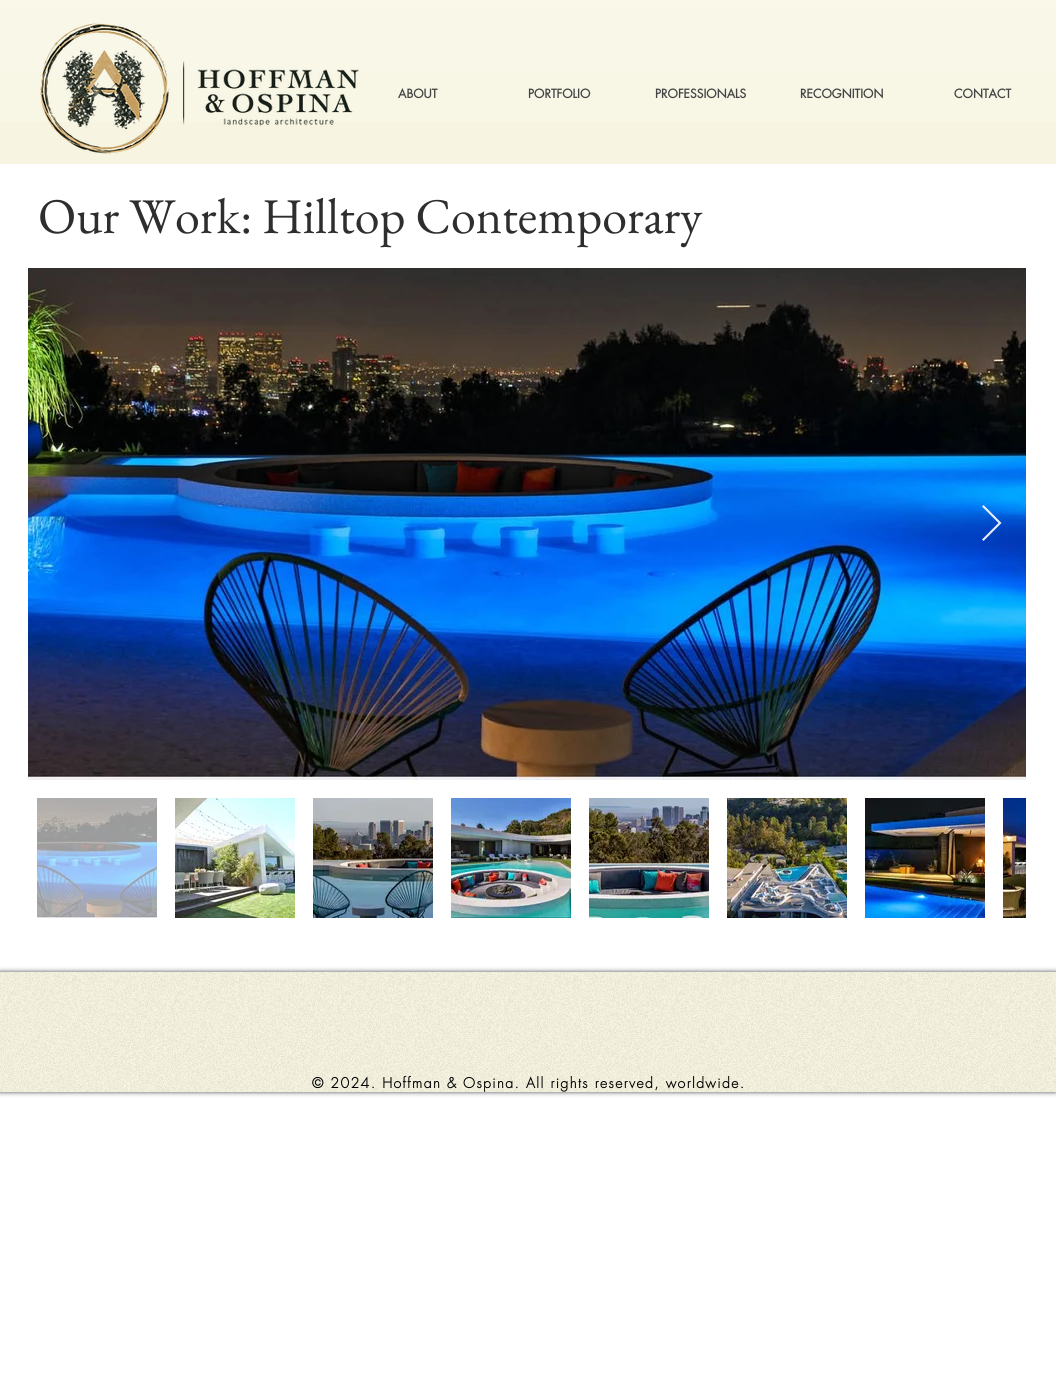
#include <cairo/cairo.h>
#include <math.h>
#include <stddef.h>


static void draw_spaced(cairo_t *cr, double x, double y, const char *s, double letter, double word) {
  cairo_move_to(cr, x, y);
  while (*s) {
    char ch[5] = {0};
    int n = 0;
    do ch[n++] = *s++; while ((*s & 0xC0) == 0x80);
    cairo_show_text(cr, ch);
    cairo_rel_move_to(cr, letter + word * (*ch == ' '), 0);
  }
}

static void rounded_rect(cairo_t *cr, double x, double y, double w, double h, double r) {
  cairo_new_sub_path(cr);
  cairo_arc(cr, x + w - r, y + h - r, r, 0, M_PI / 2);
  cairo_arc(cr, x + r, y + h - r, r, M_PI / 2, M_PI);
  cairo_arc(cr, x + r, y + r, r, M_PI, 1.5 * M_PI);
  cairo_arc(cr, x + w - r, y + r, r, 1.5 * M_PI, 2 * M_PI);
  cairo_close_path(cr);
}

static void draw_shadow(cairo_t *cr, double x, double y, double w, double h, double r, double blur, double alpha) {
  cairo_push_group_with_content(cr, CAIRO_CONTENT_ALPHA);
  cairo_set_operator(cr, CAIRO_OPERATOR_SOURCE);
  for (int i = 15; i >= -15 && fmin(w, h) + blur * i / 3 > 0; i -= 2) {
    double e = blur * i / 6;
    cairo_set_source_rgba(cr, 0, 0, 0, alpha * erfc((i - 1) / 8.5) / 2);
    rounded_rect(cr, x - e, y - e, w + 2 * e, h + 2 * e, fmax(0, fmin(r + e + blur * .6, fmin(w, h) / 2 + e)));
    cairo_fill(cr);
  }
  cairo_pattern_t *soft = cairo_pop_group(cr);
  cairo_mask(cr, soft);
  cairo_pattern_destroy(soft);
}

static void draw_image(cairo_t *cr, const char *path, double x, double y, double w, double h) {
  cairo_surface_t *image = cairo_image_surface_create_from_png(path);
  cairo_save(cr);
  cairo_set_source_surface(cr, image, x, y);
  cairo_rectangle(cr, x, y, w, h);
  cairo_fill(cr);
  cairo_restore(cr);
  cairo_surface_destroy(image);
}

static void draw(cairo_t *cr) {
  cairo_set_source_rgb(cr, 1, 1, 1);
  cairo_paint(cr);
  cairo_set_source_rgb(cr, 247 / 255.0, 245 / 255.0, 225 / 255.0);
  cairo_rectangle(cr, 0, 0, 1056, 164);
  cairo_fill(cr);
  draw_image(cr, "images/1.png", 0, 0, 1056, 122);
  draw_image(cr, "images/2.png", 40, 23, 319, 131);
  draw_image(cr, "images/3.png", 28, 268, 998, 512);
  cairo_set_source_rgba(cr, 1, 1, 1, 0.9);
  cairo_new_path(cr);
  cairo_move_to(cr, 982, 506.5);
  cairo_line_to(cr, 983.5, 505);
  cairo_line_to(cr, 1001.5, 523);
  cairo_line_to(cr, 983.5, 541);
  cairo_line_to(cr, 982, 539.5);
  cairo_line_to(cr, 998.5, 523);
  cairo_close_path(cr);
  cairo_fill(cr);
  draw_image(cr, "images/4.png", 37, 798, 120, 120);
  draw_image(cr, "images/5.png", 175, 798, 120, 120);
  draw_image(cr, "images/6.png", 313, 798, 120, 120);
  draw_image(cr, "images/7.png", 451, 798, 120, 120);
  draw_image(cr, "images/8.png", 589, 798, 120, 120);
  draw_image(cr, "images/9.png", 727, 798, 120, 120);
  draw_image(cr, "images/10.png", 865, 798, 120, 120);
  draw_image(cr, "images/11.png", 1003, 798, 23, 120);
  cairo_set_source_rgb(cr, 0, 0, 0);
  draw_shadow(cr, 0, 972, 1056, 120, 0, 2.5, 0.7);
  cairo_set_source_rgb(cr, 247 / 255.0, 245 / 255.0, 225 / 255.0);
  cairo_rectangle(cr, 0, 972, 1056, 120);
  cairo_fill(cr);
  draw_image(cr, "images/12.png", 0, 972, 1056, 120);
  cairo_select_font_face(cr, "futura", CAIRO_FONT_SLANT_NORMAL, CAIRO_FONT_WEIGHT_BOLD);
  cairo_set_font_size(cr, 12);
  cairo_set_source_rgb(cr, 68 / 255.0, 68 / 255.0, 68 / 255.0);
  cairo_move_to(cr, 398, 98);
  cairo_show_text(cr, "ABOUT");
  cairo_move_to(cr, 528, 98);
  cairo_show_text(cr, "PORTFOLIO");
  cairo_move_to(cr, 655, 98);
  cairo_show_text(cr, "PROFESSIONALS");
  cairo_move_to(cr, 800, 98);
  cairo_show_text(cr, "RECOGNITION");
  cairo_move_to(cr, 954, 98);
  cairo_show_text(cr, "CONTACT");
  cairo_select_font_face(cr, "EB Garamond", CAIRO_FONT_SLANT_NORMAL, CAIRO_FONT_WEIGHT_NORMAL);
  cairo_set_font_size(cr, 50);
  cairo_set_source_rgb(cr, 47 / 255.0, 46 / 255.0, 46 / 255.0);
  cairo_move_to(cr, 38, 233);
  cairo_show_text(cr, "Our Work: Hilltop Contemporary");
  cairo_select_font_face(cr, "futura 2", CAIRO_FONT_SLANT_NORMAL, CAIRO_FONT_WEIGHT_BOLD);
  cairo_set_font_size(cr, 14);
  cairo_set_source_rgb(cr, 0, 0, 0);
  draw_spaced(cr, 312, 1088, "© 2024. Hoffman & Ospina. All rights reserved, worldwide.", 1.4, 0);
}

int main(void) {
  cairo_surface_t *surface = cairo_image_surface_create(CAIRO_FORMAT_RGB24, 1056, 1377);
  cairo_t *cr = cairo_create(surface);
  cairo_font_options_t *options = cairo_font_options_create();
  cairo_font_options_set_hint_metrics(options, CAIRO_HINT_METRICS_OFF);
  cairo_font_options_set_hint_style(options, CAIRO_HINT_STYLE_NONE);
  cairo_set_font_options(cr, options);
  cairo_set_miter_limit(cr, 4);
  draw(cr);
  cairo_surface_write_to_png(surface, "out.png");
  cairo_font_options_destroy(options);
  cairo_destroy(cr);
  cairo_surface_destroy(surface);
  return 0;
}
